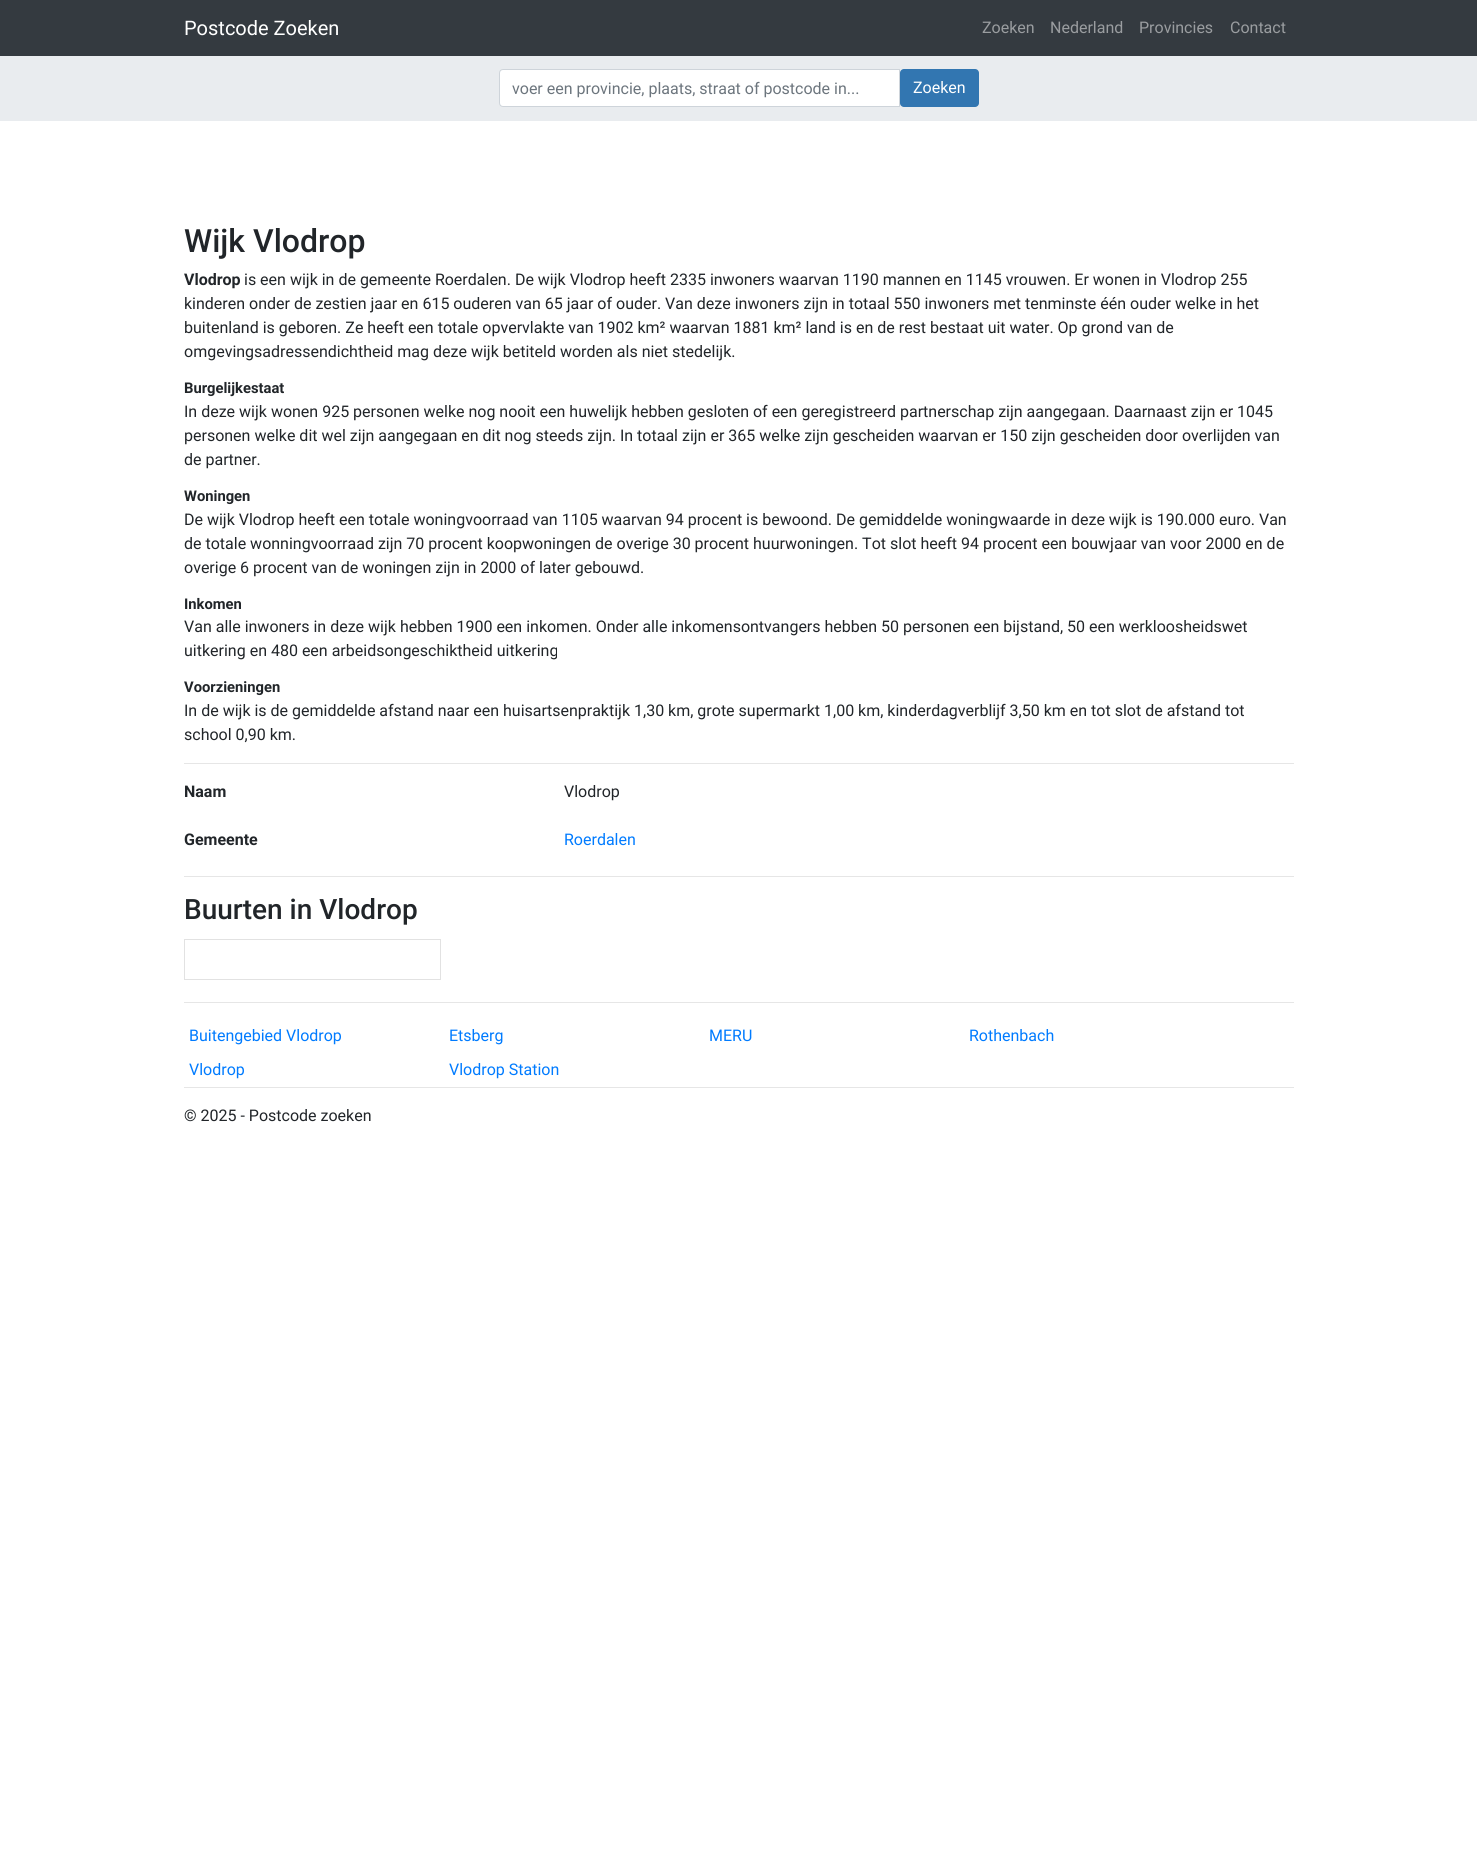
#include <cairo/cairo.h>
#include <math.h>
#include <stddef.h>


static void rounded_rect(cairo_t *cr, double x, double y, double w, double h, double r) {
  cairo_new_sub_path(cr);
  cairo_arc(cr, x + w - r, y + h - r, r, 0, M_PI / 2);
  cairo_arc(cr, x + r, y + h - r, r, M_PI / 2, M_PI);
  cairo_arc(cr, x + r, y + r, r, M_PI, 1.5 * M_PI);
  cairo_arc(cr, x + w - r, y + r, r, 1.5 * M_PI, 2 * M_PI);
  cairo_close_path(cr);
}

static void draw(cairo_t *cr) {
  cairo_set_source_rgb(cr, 1, 1, 1);
  cairo_paint(cr);
  cairo_set_source_rgb(cr, 52 / 255.0, 58 / 255.0, 64 / 255.0);
  cairo_rectangle(cr, 0, 0, 1477, 56);
  cairo_fill(cr);
  cairo_set_source_rgb(cr, 233 / 255.0, 236 / 255.0, 239 / 255.0);
  cairo_rectangle(cr, 0, 56, 1477, 65);
  cairo_fill(cr);
  cairo_set_source_rgb(cr, 1, 1, 1);
  cairo_new_path(cr);
  cairo_move_to(cr, 503, 69.5);
  cairo_line_to(cr, 899.5, 69.5);
  cairo_line_to(cr, 899.5, 106.5);
  cairo_line_to(cr, 503, 106.5);
  cairo_curve_to(cr, 501, 106.5, 499.5, 105, 499.5, 103);
  cairo_line_to(cr, 499.5, 73);
  cairo_curve_to(cr, 499.5, 71, 501, 69.5, 503, 69.5);
  cairo_close_path(cr);
  cairo_fill_preserve(cr);
  cairo_set_source_rgb(cr, 206 / 255.0, 212 / 255.0, 218 / 255.0);
  cairo_set_line_width(cr, 1);
  cairo_stroke(cr);
  cairo_set_source_rgb(cr, 50 / 255.0, 118 / 255.0, 177 / 255.0);
  rounded_rect(cr, 900, 69, 79, 38, 4);
  cairo_fill(cr);
  cairo_set_source_rgb(cr, 230 / 255.0, 230 / 255.0, 230 / 255.0);
  cairo_rectangle(cr, 184, 763, 1110, 1);
  cairo_fill(cr);
  cairo_rectangle(cr, 184, 876, 1110, 1);
  cairo_fill(cr);
  cairo_rectangle(cr, 184.5, 939.5, 256, 40);
  cairo_set_source_rgb(cr, 226 / 255.0, 226 / 255.0, 226 / 255.0);
  cairo_stroke(cr);
  cairo_set_source_rgb(cr, 230 / 255.0, 230 / 255.0, 230 / 255.0);
  cairo_rectangle(cr, 184, 1002, 1110, 1);
  cairo_fill(cr);
  cairo_rectangle(cr, 184, 1087, 1110, 1);
  cairo_fill(cr);
  cairo_select_font_face(cr, "Roboto", CAIRO_FONT_SLANT_NORMAL, CAIRO_FONT_WEIGHT_NORMAL);
  cairo_set_font_size(cr, 20);
  cairo_set_source_rgb(cr, 1, 1, 1);
  cairo_move_to(cr, 184, 35);
  cairo_show_text(cr, "Postcode Zoeken");
  cairo_set_font_size(cr, 16);
  cairo_set_source_rgb(cr, 154 / 255.0, 157 / 255.0, 160 / 255.0);
  cairo_move_to(cr, 982, 33);
  cairo_show_text(cr, "Zoeken");
  cairo_move_to(cr, 1050, 33);
  cairo_show_text(cr, "Nederland");
  cairo_move_to(cr, 1139, 33);
  cairo_show_text(cr, "Provincies");
  cairo_move_to(cr, 1230, 33);
  cairo_show_text(cr, "Contact");
  cairo_set_source_rgb(cr, 108 / 255.0, 117 / 255.0, 125 / 255.0);
  cairo_move_to(cr, 512, 94);
  cairo_show_text(cr, "voer een provincie, plaats, straat of postcode in...");
  cairo_set_source_rgb(cr, 1, 1, 1);
  cairo_move_to(cr, 913, 93);
  cairo_show_text(cr, "Zoeken");
  cairo_select_font_face(cr, "Roboto Medium", CAIRO_FONT_SLANT_NORMAL, CAIRO_FONT_WEIGHT_NORMAL);
  cairo_set_font_size(cr, 32);
  cairo_set_source_rgb(cr, 33 / 255.0, 37 / 255.0, 41 / 255.0);
  cairo_move_to(cr, 184, 252);
  cairo_show_text(cr, "Wijk Vlodrop");
  cairo_select_font_face(cr, "Roboto", CAIRO_FONT_SLANT_NORMAL, CAIRO_FONT_WEIGHT_BOLD);
  cairo_set_font_size(cr, 16);
  cairo_move_to(cr, 184, 285);
  cairo_show_text(cr, "Vlodrop");
  cairo_select_font_face(cr, "Roboto", CAIRO_FONT_SLANT_NORMAL, CAIRO_FONT_WEIGHT_NORMAL);
  cairo_move_to(cr, 244, 285);
  cairo_show_text(cr, "is een wijk in de gemeente Roerdalen. De wijk Vlodrop heeft 2335 inwoners waarvan 1190 mannen en 1145 vrouwen. Er wonen in Vlodrop 255");
  cairo_move_to(cr, 184, 309);
  cairo_show_text(cr, "kinderen onder de zestien jaar en 615 ouderen van 65 jaar of ouder. Van deze inwoners zijn in totaal 550 inwoners met tenminste één ouder welke in het");
  cairo_move_to(cr, 184, 333);
  cairo_show_text(cr, "buitenland is geboren. Ze heeft een totale opvervlakte van 1902 km² waarvan 1881 km² land is en de rest bestaat uit water. Op grond van de");
  cairo_move_to(cr, 184, 357);
  cairo_show_text(cr, "omgevingsadressendichtheid mag deze wijk betiteld worden als niet stedelijk.");
  cairo_select_font_face(cr, "Roboto", CAIRO_FONT_SLANT_NORMAL, CAIRO_FONT_WEIGHT_BOLD);
  cairo_set_font_size(cr, 14.75);
  cairo_move_to(cr, 184, 393);
  cairo_show_text(cr, "Burgelijkestaat");
  cairo_select_font_face(cr, "Roboto", CAIRO_FONT_SLANT_NORMAL, CAIRO_FONT_WEIGHT_NORMAL);
  cairo_set_font_size(cr, 16);
  cairo_move_to(cr, 184, 417);
  cairo_show_text(cr, "In deze wijk wonen 925 personen welke nog nooit een huwelijk hebben gesloten of een geregistreerd partnerschap zijn aangegaan. Daarnaast zijn er 1045");
  cairo_move_to(cr, 184, 441);
  cairo_show_text(cr, "personen welke dit wel zijn aangegaan en dit nog steeds zijn. In totaal zijn er 365 welke zijn gescheiden waarvan er 150 zijn gescheiden door overlijden van");
  cairo_move_to(cr, 184, 465);
  cairo_show_text(cr, "de partner.");
  cairo_select_font_face(cr, "Roboto", CAIRO_FONT_SLANT_NORMAL, CAIRO_FONT_WEIGHT_BOLD);
  cairo_set_font_size(cr, 14.75);
  cairo_move_to(cr, 184, 501);
  cairo_show_text(cr, "Woningen");
  cairo_select_font_face(cr, "Roboto", CAIRO_FONT_SLANT_NORMAL, CAIRO_FONT_WEIGHT_NORMAL);
  cairo_set_font_size(cr, 16);
  cairo_move_to(cr, 184, 525);
  cairo_show_text(cr, "De wijk Vlodrop heeft een totale woningvoorraad van 1105 waarvan 94 procent is bewoond. De gemiddelde woningwaarde in deze wijk is 190.000 euro. Van");
  cairo_move_to(cr, 184, 549);
  cairo_show_text(cr, "de totale wonningvoorraad zijn 70 procent koopwoningen de overige 30 procent huurwoningen. Tot slot heeft 94 procent een bouwjaar van voor 2000 en de");
  cairo_move_to(cr, 184, 573);
  cairo_show_text(cr, "overige 6 procent van de woningen zijn in 2000 of later gebouwd.");
  cairo_select_font_face(cr, "Roboto", CAIRO_FONT_SLANT_NORMAL, CAIRO_FONT_WEIGHT_BOLD);
  cairo_set_font_size(cr, 14.75);
  cairo_move_to(cr, 184, 609);
  cairo_show_text(cr, "Inkomen");
  cairo_select_font_face(cr, "Roboto", CAIRO_FONT_SLANT_NORMAL, CAIRO_FONT_WEIGHT_NORMAL);
  cairo_set_font_size(cr, 16);
  cairo_move_to(cr, 184, 632);
  cairo_show_text(cr, "Van alle inwoners in deze wijk hebben 1900 een inkomen. Onder alle inkomensontvangers hebben 50 personen een bijstand, 50 een werkloosheidswet");
  cairo_move_to(cr, 184, 656);
  cairo_show_text(cr, "uitkering en 480 een arbeidsongeschiktheid uitkering");
  cairo_select_font_face(cr, "Roboto", CAIRO_FONT_SLANT_NORMAL, CAIRO_FONT_WEIGHT_BOLD);
  cairo_set_font_size(cr, 14.75);
  cairo_move_to(cr, 184, 692);
  cairo_show_text(cr, "Voorzieningen");
  cairo_select_font_face(cr, "Roboto", CAIRO_FONT_SLANT_NORMAL, CAIRO_FONT_WEIGHT_NORMAL);
  cairo_set_font_size(cr, 16);
  cairo_move_to(cr, 184, 716);
  cairo_show_text(cr, "In de wijk is de gemiddelde afstand naar een huisartsenpraktijk 1,30 km, grote supermarkt 1,00 km, kinderdagverblijf 3,50 km en tot slot de afstand tot");
  cairo_move_to(cr, 184, 740);
  cairo_show_text(cr, "school 0,90 km.");
  cairo_select_font_face(cr, "Roboto", CAIRO_FONT_SLANT_NORMAL, CAIRO_FONT_WEIGHT_BOLD);
  cairo_move_to(cr, 184, 797);
  cairo_show_text(cr, "Naam");
  cairo_select_font_face(cr, "Roboto", CAIRO_FONT_SLANT_NORMAL, CAIRO_FONT_WEIGHT_NORMAL);
  cairo_move_to(cr, 564, 797);
  cairo_show_text(cr, "Vlodrop");
  cairo_select_font_face(cr, "Roboto", CAIRO_FONT_SLANT_NORMAL, CAIRO_FONT_WEIGHT_BOLD);
  cairo_move_to(cr, 184, 845);
  cairo_show_text(cr, "Gemeente");
  cairo_select_font_face(cr, "Roboto", CAIRO_FONT_SLANT_NORMAL, CAIRO_FONT_WEIGHT_NORMAL);
  cairo_set_source_rgb(cr, 0, 123 / 255.0, 1);
  cairo_move_to(cr, 564, 845);
  cairo_show_text(cr, "Roerdalen");
  cairo_select_font_face(cr, "Roboto Medium", CAIRO_FONT_SLANT_NORMAL, CAIRO_FONT_WEIGHT_NORMAL);
  cairo_set_font_size(cr, 28);
  cairo_set_source_rgb(cr, 33 / 255.0, 37 / 255.0, 41 / 255.0);
  cairo_move_to(cr, 184, 919);
  cairo_show_text(cr, "Buurten in Vlodrop");
  cairo_select_font_face(cr, "Roboto", CAIRO_FONT_SLANT_NORMAL, CAIRO_FONT_WEIGHT_NORMAL);
  cairo_set_font_size(cr, 16);
  cairo_set_source_rgb(cr, 0, 123 / 255.0, 1);
  cairo_move_to(cr, 189, 1041);
  cairo_show_text(cr, "Buitengebied Vlodrop");
  cairo_move_to(cr, 449, 1041);
  cairo_show_text(cr, "Etsberg");
  cairo_move_to(cr, 709, 1041);
  cairo_show_text(cr, "MERU");
  cairo_move_to(cr, 969, 1041);
  cairo_show_text(cr, "Rothenbach");
  cairo_move_to(cr, 189, 1075);
  cairo_show_text(cr, "Vlodrop");
  cairo_move_to(cr, 449, 1075);
  cairo_show_text(cr, "Vlodrop Station");
  cairo_set_source_rgb(cr, 33 / 255.0, 37 / 255.0, 41 / 255.0);
  cairo_move_to(cr, 184, 1121);
  cairo_show_text(cr, "© 2025 - Postcode zoeken");
}

int main(void) {
  cairo_surface_t *surface = cairo_image_surface_create(CAIRO_FORMAT_RGB24, 1477, 1856);
  cairo_t *cr = cairo_create(surface);
  cairo_font_options_t *options = cairo_font_options_create();
  cairo_font_options_set_hint_metrics(options, CAIRO_HINT_METRICS_OFF);
  cairo_font_options_set_hint_style(options, CAIRO_HINT_STYLE_NONE);
  cairo_set_font_options(cr, options);
  cairo_set_miter_limit(cr, 4);
  draw(cr);
  cairo_surface_write_to_png(surface, "out.png");
  cairo_font_options_destroy(options);
  cairo_destroy(cr);
  cairo_surface_destroy(surface);
  return 0;
}
